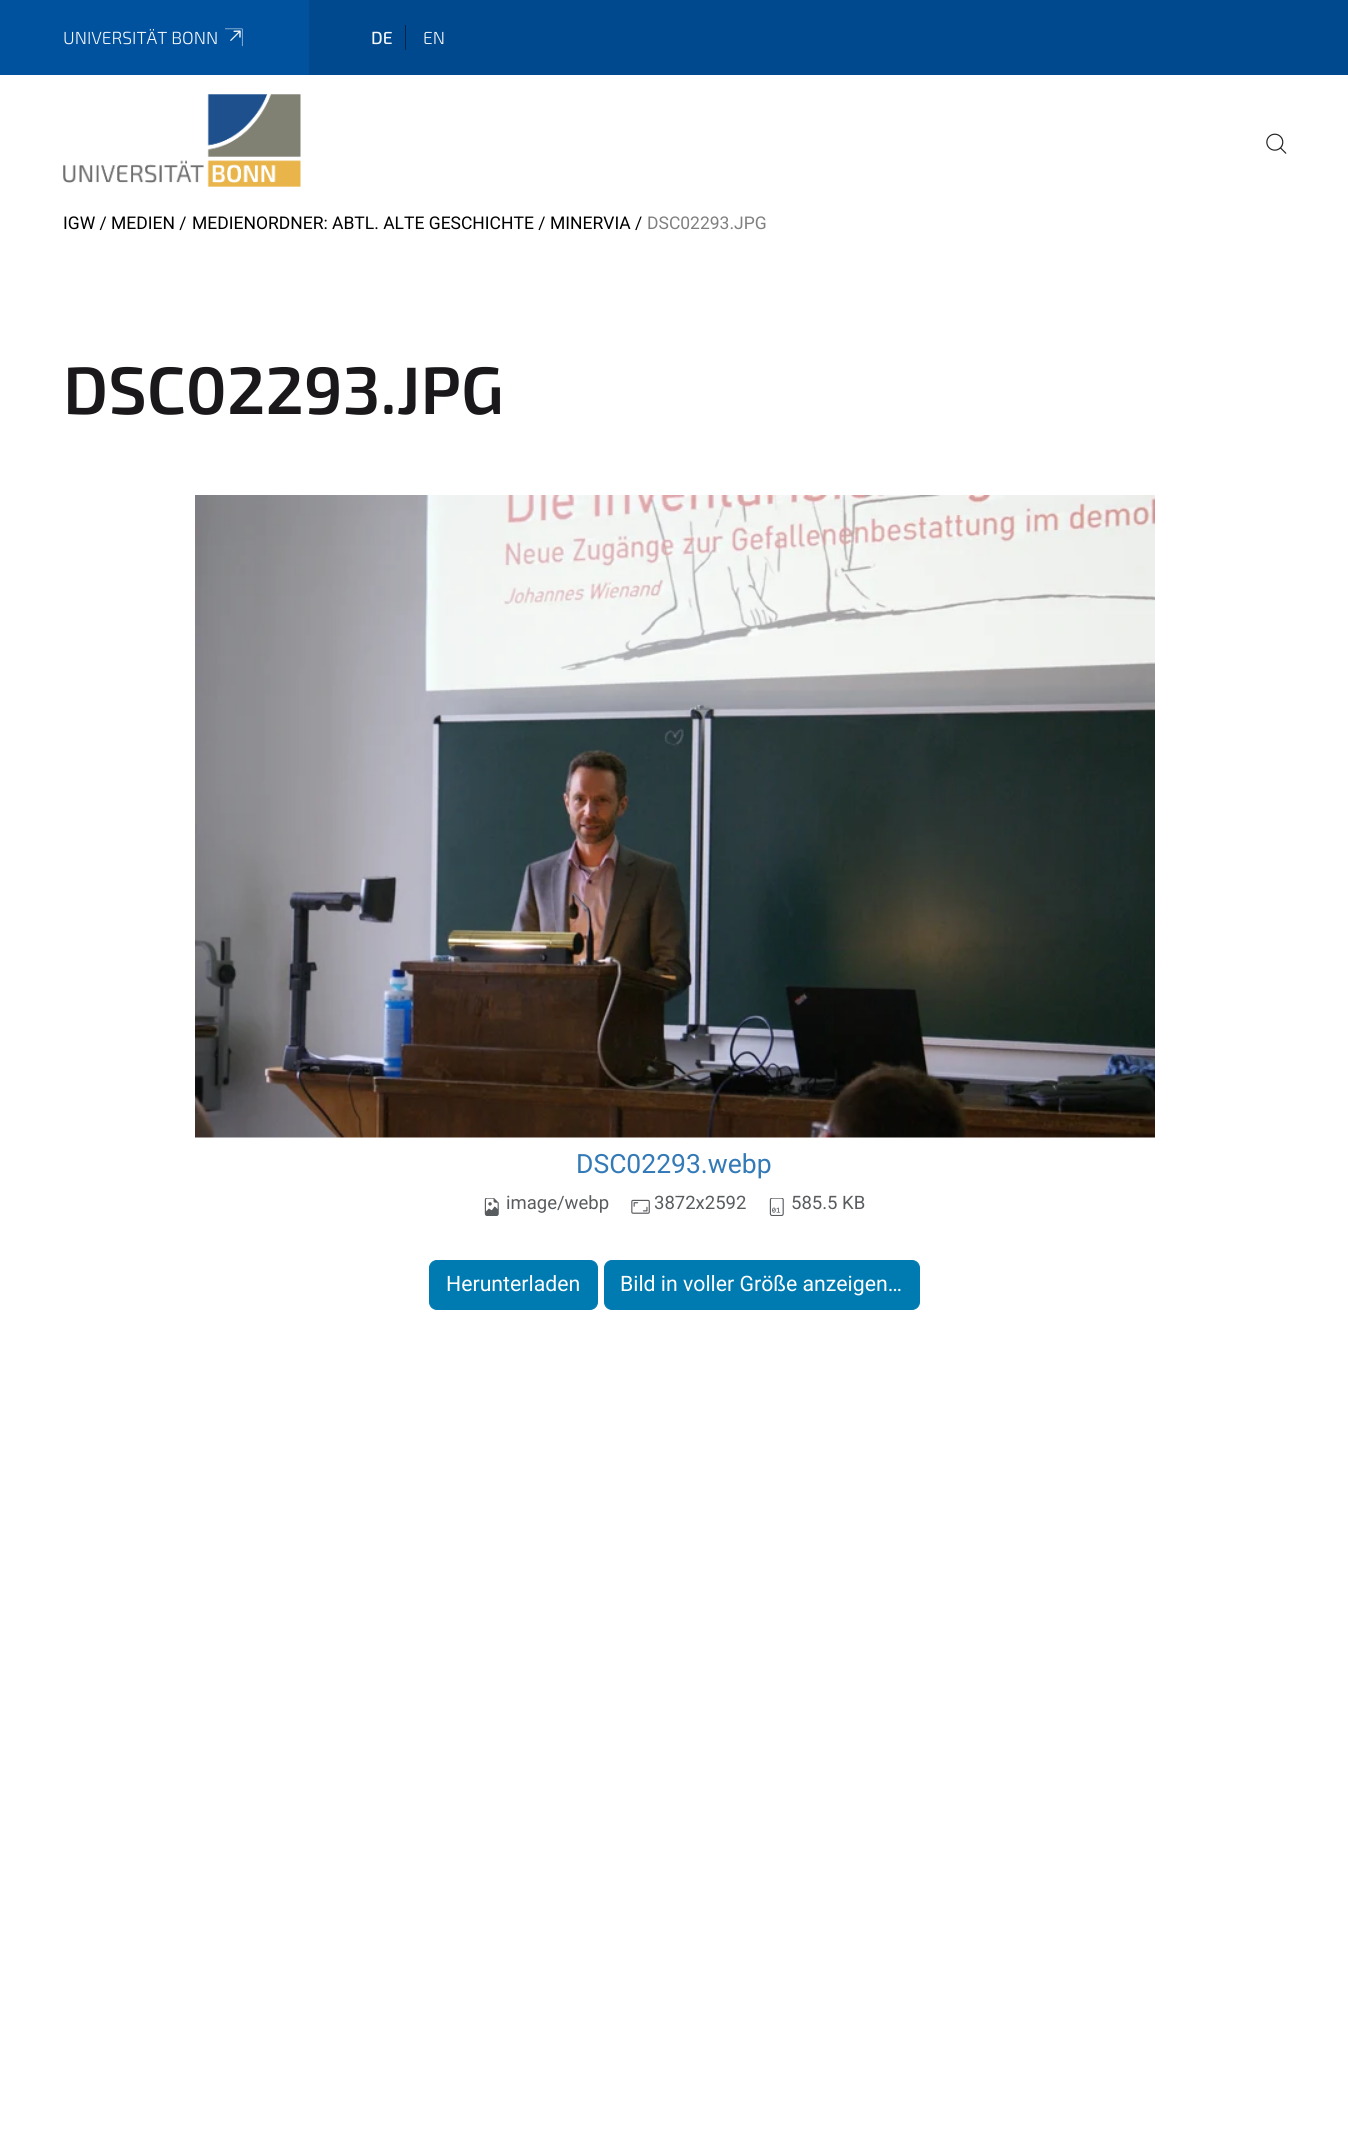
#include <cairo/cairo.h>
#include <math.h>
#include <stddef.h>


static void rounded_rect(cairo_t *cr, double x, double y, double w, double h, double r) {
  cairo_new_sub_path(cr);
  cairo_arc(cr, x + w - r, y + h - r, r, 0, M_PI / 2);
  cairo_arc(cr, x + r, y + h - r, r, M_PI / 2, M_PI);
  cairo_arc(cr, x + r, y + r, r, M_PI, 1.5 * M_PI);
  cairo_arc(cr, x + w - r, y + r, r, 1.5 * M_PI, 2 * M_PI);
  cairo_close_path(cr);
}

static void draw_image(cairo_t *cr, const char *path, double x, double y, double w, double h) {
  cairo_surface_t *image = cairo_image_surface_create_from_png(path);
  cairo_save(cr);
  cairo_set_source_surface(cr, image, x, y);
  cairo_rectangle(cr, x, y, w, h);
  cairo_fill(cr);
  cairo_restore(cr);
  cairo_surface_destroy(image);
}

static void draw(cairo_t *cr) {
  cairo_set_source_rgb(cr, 1, 1, 1);
  cairo_paint(cr);
  cairo_set_source_rgb(cr, 0, 73 / 255.0, 143 / 255.0);
  cairo_rectangle(cr, 309, 0, 1039, 75);
  cairo_fill(cr);
  cairo_set_source_rgb(cr, 0, 82 / 255.0, 159 / 255.0);
  cairo_rectangle(cr, 0, 0, 309, 75);
  cairo_fill(cr);
  draw_image(cr, "images/1.png", 225, 28, 18, 19);
  cairo_set_source_rgb(cr, 1 / 255.0, 37 / 255.0, 72 / 255.0);
  cairo_rectangle(cr, 405, 25, 1, 25);
  cairo_fill(cr);
  draw_image(cr, "images/2.png", 63, 94, 238, 93);
  draw_image(cr, "images/3.png", 1266, 133, 21, 21);
  draw_image(cr, "images/4.png", 195, 495, 960, 643);
  draw_image(cr, "images/5.png", 484, 1198, 15, 18);
  draw_image(cr, "images/6.png", 631, 1199, 19, 15);
  draw_image(cr, "images/7.png", 769, 1198, 15, 18);
  cairo_set_source_rgb(cr, 0, 123 / 255.0, 177 / 255.0);
  rounded_rect(cr, 429.5, 1260.5, 168, 49, 7.5);
  cairo_fill_preserve(cr);
  cairo_set_line_width(cr, 1);
  cairo_stroke(cr);
  rounded_rect(cr, 604.5, 1260.5, 315, 49, 7.5);
  cairo_fill_preserve(cr);
  cairo_stroke(cr);
  cairo_select_font_face(cr, "Exo 2 Light", CAIRO_FONT_SLANT_NORMAL, CAIRO_FONT_WEIGHT_NORMAL);
  cairo_set_font_size(cr, 17.5);
  cairo_set_source_rgb(cr, 246 / 255.0, 247 / 255.0, 249 / 255.0);
  cairo_move_to(cr, 63, 44);
  cairo_show_text(cr, "UNIVERSITÄT BONN");
  cairo_select_font_face(cr, "Exo 2 Medium", CAIRO_FONT_SLANT_NORMAL, CAIRO_FONT_WEIGHT_NORMAL);
  cairo_move_to(cr, 371, 44);
  cairo_show_text(cr, "DE");
  cairo_select_font_face(cr, "Exo 2 Light", CAIRO_FONT_SLANT_NORMAL, CAIRO_FONT_WEIGHT_NORMAL);
  cairo_move_to(cr, 423, 44);
  cairo_show_text(cr, "EN");
  cairo_select_font_face(cr, "Roboto", CAIRO_FONT_SLANT_NORMAL, CAIRO_FONT_WEIGHT_NORMAL);
  cairo_set_source_rgb(cr, 0, 0, 0);
  cairo_move_to(cr, 63, 229);
  cairo_show_text(cr, "IGW /");
  cairo_move_to(cr, 111, 229);
  cairo_show_text(cr, "MEDIEN /");
  cairo_move_to(cr, 192, 229);
  cairo_show_text(cr, "MEDIENORDNER: ABTL. ALTE GESCHICHTE /");
  cairo_move_to(cr, 550, 229);
  cairo_show_text(cr, "MINERVIA /");
  cairo_set_source_rgb(cr, 128 / 255.0, 128 / 255.0, 128 / 255.0);
  cairo_move_to(cr, 647, 229);
  cairo_show_text(cr, "DSC02293.JPG");
  cairo_select_font_face(cr, "Exo 2 SemiBold", CAIRO_FONT_SLANT_NORMAL, CAIRO_FONT_WEIGHT_NORMAL);
  cairo_set_font_size(cr, 67);
  cairo_set_source_rgb(cr, 26 / 255.0, 24 / 255.0, 27 / 255.0);
  cairo_move_to(cr, 63, 414);
  cairo_show_text(cr, "DSC02293.JPG");
  cairo_select_font_face(cr, "Roboto", CAIRO_FONT_SLANT_NORMAL, CAIRO_FONT_WEIGHT_NORMAL);
  cairo_set_font_size(cr, 26.5);
  cairo_set_source_rgb(cr, 51 / 255.0, 122 / 255.0, 183 / 255.0);
  cairo_move_to(cr, 576, 1173);
  cairo_show_text(cr, "DSC02293.webp");
  cairo_set_font_size(cr, 18.5);
  cairo_set_source_rgb(cr, 89 / 255.0, 92 / 255.0, 95 / 255.0);
  cairo_move_to(cr, 506, 1209);
  cairo_show_text(cr, "image/webp");
  cairo_move_to(cr, 654, 1209);
  cairo_show_text(cr, "3872x2592");
  cairo_move_to(cr, 791, 1209);
  cairo_show_text(cr, "585.5 KB");
  cairo_set_font_size(cr, 21.25);
  cairo_set_source_rgb(cr, 1, 1, 1);
  cairo_move_to(cr, 446, 1291);
  cairo_show_text(cr, "Herunterladen");
  cairo_move_to(cr, 620, 1291);
  cairo_show_text(cr, "Bild in voller Größe anzeigen…");
}

int main(void) {
  cairo_surface_t *surface = cairo_image_surface_create(CAIRO_FORMAT_RGB24, 1348, 2147);
  cairo_t *cr = cairo_create(surface);
  cairo_font_options_t *options = cairo_font_options_create();
  cairo_font_options_set_hint_metrics(options, CAIRO_HINT_METRICS_OFF);
  cairo_font_options_set_hint_style(options, CAIRO_HINT_STYLE_NONE);
  cairo_set_font_options(cr, options);
  cairo_set_miter_limit(cr, 4);
  draw(cr);
  cairo_surface_write_to_png(surface, "out.png");
  cairo_font_options_destroy(options);
  cairo_destroy(cr);
  cairo_surface_destroy(surface);
  return 0;
}
